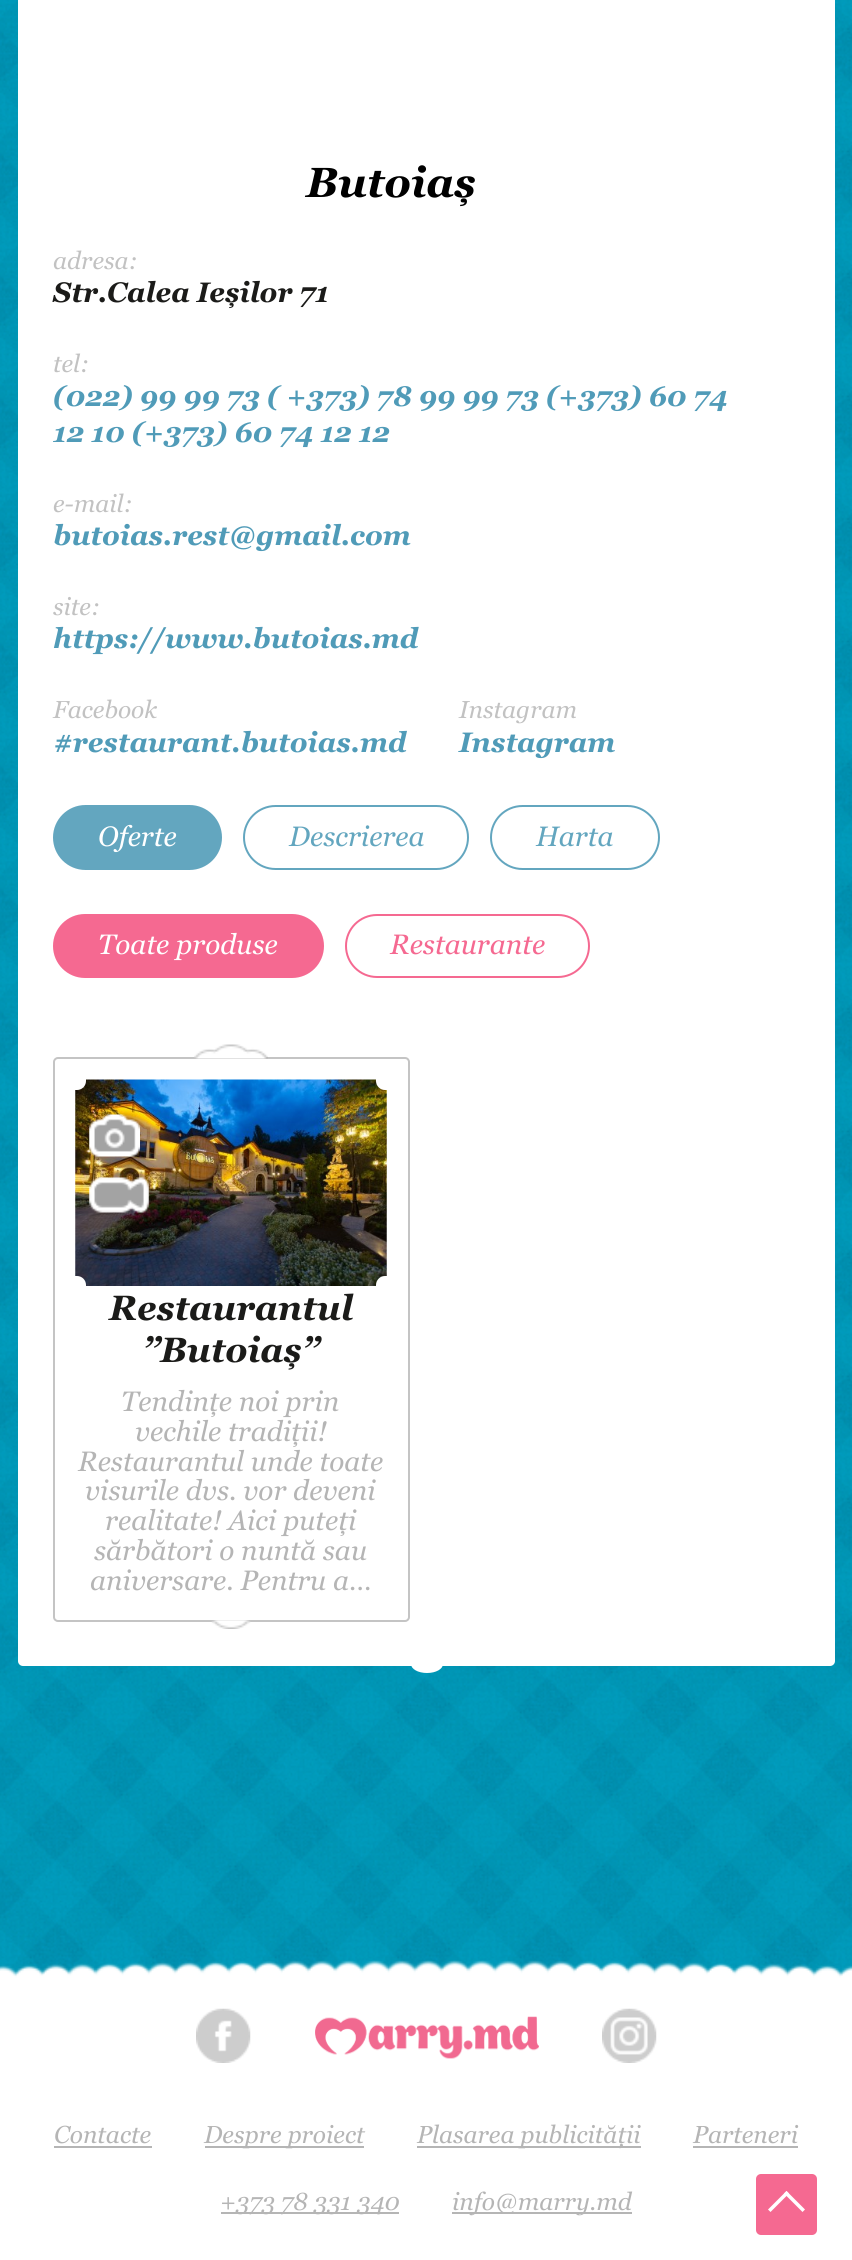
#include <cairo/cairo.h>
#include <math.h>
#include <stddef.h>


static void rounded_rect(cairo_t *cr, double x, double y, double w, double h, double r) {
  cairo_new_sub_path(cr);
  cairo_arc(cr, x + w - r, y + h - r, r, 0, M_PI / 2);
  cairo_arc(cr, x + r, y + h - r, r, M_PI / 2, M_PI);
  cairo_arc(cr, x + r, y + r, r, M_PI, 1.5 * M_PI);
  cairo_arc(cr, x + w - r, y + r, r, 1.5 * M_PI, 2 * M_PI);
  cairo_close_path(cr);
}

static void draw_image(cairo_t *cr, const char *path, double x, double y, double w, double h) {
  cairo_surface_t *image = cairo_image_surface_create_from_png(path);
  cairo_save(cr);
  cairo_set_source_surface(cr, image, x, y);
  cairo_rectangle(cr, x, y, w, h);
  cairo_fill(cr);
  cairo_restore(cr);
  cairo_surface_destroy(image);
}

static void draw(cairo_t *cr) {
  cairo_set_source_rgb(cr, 1, 1, 1);
  cairo_paint(cr);
  draw_image(cr, "images/1.png", 0, 0, 852, 1978);
  cairo_set_source_rgb(cr, 1, 1, 1);
  rounded_rect(cr, 18, -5, 817, 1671, 5);
  cairo_fill(cr);
  cairo_set_source_rgb(cr, 99 / 255.0, 166 / 255.0, 191 / 255.0);
  rounded_rect(cr, 54, 806, 167, 63, 31.5);
  cairo_fill_preserve(cr);
  cairo_stroke(cr);
  rounded_rect(cr, 244, 806, 224, 63, 31.5);
  cairo_stroke(cr);
  rounded_rect(cr, 491, 806, 168, 63, 31.5);
  cairo_stroke(cr);
  cairo_set_source_rgb(cr, 245 / 255.0, 105 / 255.0, 145 / 255.0);
  rounded_rect(cr, 54, 915, 269, 62, 31);
  cairo_fill_preserve(cr);
  cairo_stroke(cr);
  rounded_rect(cr, 346, 915, 243, 62, 31);
  cairo_stroke(cr);
  rounded_rect(cr, 54, 1058, 355, 563, 4);
  cairo_set_source_rgb(cr, 196 / 255.0, 196 / 255.0, 196 / 255.0);
  cairo_stroke(cr);
  draw_image(cr, "images/2.png", 194, 1044, 74, 15);
  draw_image(cr, "images/3.png", 75, 1079, 312, 207);
  cairo_set_source_rgb(cr, 1, 1, 1);
  rounded_rect(cr, 65, 1069, 21, 21, 9);
  cairo_fill(cr);
  rounded_rect(cr, 376, 1069, 21, 21, 9);
  cairo_fill(cr);
  draw_image(cr, "images/4.png", 89, 1114, 51, 43);
  draw_image(cr, "images/5.png", 89, 1177, 60, 36);
  rounded_rect(cr, 65, 1276, 21, 21, 9);
  cairo_fill(cr);
  rounded_rect(cr, 376, 1276, 21, 21, 9);
  cairo_fill(cr);
  draw_image(cr, "images/6.png", 211, 1620, 40, 9);
  cairo_new_path(cr);
  cairo_move_to(cr, 427, 1655);
  cairo_curve_to(cr, 436, 1655, 443, 1659, 443, 1664);
  cairo_curve_to(cr, 443, 1669, 436, 1673, 427, 1673);
  cairo_curve_to(cr, 418, 1673, 411, 1669, 411, 1664);
  cairo_curve_to(cr, 411, 1659, 418, 1655, 427, 1655);
  cairo_close_path(cr);
  cairo_fill(cr);
  draw_image(cr, "images/7.png", 0, 1960, 852, 70);
  draw_image(cr, "images/8.png", 196, 2008, 55, 55);
  draw_image(cr, "images/9.png", 315, 2016, 224, 43);
  draw_image(cr, "images/10.png", 602, 2008, 55, 55);
  cairo_set_source_rgb(cr, 181 / 255.0, 181 / 255.0, 181 / 255.0);
  cairo_rectangle(cr, 54, 2146, 98, 2);
  cairo_fill(cr);
  cairo_rectangle(cr, 205, 2146, 159, 2);
  cairo_fill(cr);
  cairo_rectangle(cr, 417, 2146, 224, 2);
  cairo_fill(cr);
  cairo_rectangle(cr, 693, 2146, 105, 2);
  cairo_fill(cr);
  cairo_rectangle(cr, 221, 2212, 178, 2);
  cairo_fill(cr);
  cairo_rectangle(cr, 452, 2212, 180, 2);
  cairo_fill(cr);
  cairo_set_source_rgb(cr, 245 / 255.0, 105 / 255.0, 145 / 255.0);
  rounded_rect(cr, 756, 2174, 61, 61, 5);
  cairo_fill(cr);
  cairo_set_source_rgb(cr, 1, 1, 1);
  cairo_new_path(cr);
  cairo_move_to(cr, 770.5, 2212);
  cairo_line_to(cr, 768, 2209.5);
  cairo_line_to(cr, 786.5, 2191);
  cairo_line_to(cr, 789, 2193.5);
  cairo_close_path(cr);
  cairo_fill(cr);
  cairo_new_path(cr);
  cairo_move_to(cr, 802.5, 2212);
  cairo_line_to(cr, 784, 2193.5);
  cairo_line_to(cr, 786.5, 2191);
  cairo_line_to(cr, 805, 2209.5);
  cairo_close_path(cr);
  cairo_fill(cr);
  cairo_select_font_face(cr, "Georgia", CAIRO_FONT_SLANT_ITALIC, CAIRO_FONT_WEIGHT_BOLD);
  cairo_set_font_size(cr, 42);
  cairo_set_source_rgb(cr, 0, 0, 0);
  cairo_move_to(cr, 306, 197);
  cairo_show_text(cr, "Butoiaș");
  cairo_select_font_face(cr, "Georgia", CAIRO_FONT_SLANT_ITALIC, CAIRO_FONT_WEIGHT_NORMAL);
  cairo_set_font_size(cr, 24.5);
  cairo_set_source_rgb(cr, 194 / 255.0, 194 / 255.0, 194 / 255.0);
  cairo_move_to(cr, 53, 269);
  cairo_show_text(cr, "adresa:");
  cairo_select_font_face(cr, "Georgia", CAIRO_FONT_SLANT_ITALIC, CAIRO_FONT_WEIGHT_BOLD);
  cairo_set_font_size(cr, 28);
  cairo_set_source_rgb(cr, 27 / 255.0, 27 / 255.0, 25 / 255.0);
  cairo_move_to(cr, 53, 302);
  cairo_show_text(cr, "Str.Calea Ieșilor 71");
  cairo_select_font_face(cr, "Georgia", CAIRO_FONT_SLANT_ITALIC, CAIRO_FONT_WEIGHT_NORMAL);
  cairo_set_font_size(cr, 24.5);
  cairo_set_source_rgb(cr, 194 / 255.0, 194 / 255.0, 194 / 255.0);
  cairo_move_to(cr, 53, 372);
  cairo_show_text(cr, "tel:");
  cairo_select_font_face(cr, "Georgia", CAIRO_FONT_SLANT_ITALIC, CAIRO_FONT_WEIGHT_BOLD);
  cairo_set_font_size(cr, 28);
  cairo_set_source_rgb(cr, 80 / 255.0, 155 / 255.0, 184 / 255.0);
  cairo_move_to(cr, 53, 406);
  cairo_show_text(cr, "(022) 99 99 73 ( +373) 78 99 99 73 (+373) 60 74");
  cairo_move_to(cr, 53, 442);
  cairo_show_text(cr, "12 10 (+373) 60 74 12 12");
  cairo_select_font_face(cr, "Georgia", CAIRO_FONT_SLANT_ITALIC, CAIRO_FONT_WEIGHT_NORMAL);
  cairo_set_font_size(cr, 24.5);
  cairo_set_source_rgb(cr, 194 / 255.0, 194 / 255.0, 194 / 255.0);
  cairo_move_to(cr, 53, 512);
  cairo_show_text(cr, "e-mail:");
  cairo_select_font_face(cr, "Georgia", CAIRO_FONT_SLANT_ITALIC, CAIRO_FONT_WEIGHT_BOLD);
  cairo_set_font_size(cr, 28);
  cairo_set_source_rgb(cr, 80 / 255.0, 155 / 255.0, 184 / 255.0);
  cairo_move_to(cr, 53, 545);
  cairo_show_text(cr, "butoias.rest@gmail.com");
  cairo_select_font_face(cr, "Georgia", CAIRO_FONT_SLANT_ITALIC, CAIRO_FONT_WEIGHT_NORMAL);
  cairo_set_font_size(cr, 24.5);
  cairo_set_source_rgb(cr, 194 / 255.0, 194 / 255.0, 194 / 255.0);
  cairo_move_to(cr, 53, 615);
  cairo_show_text(cr, "site:");
  cairo_select_font_face(cr, "Georgia", CAIRO_FONT_SLANT_ITALIC, CAIRO_FONT_WEIGHT_BOLD);
  cairo_set_font_size(cr, 28);
  cairo_set_source_rgb(cr, 80 / 255.0, 155 / 255.0, 184 / 255.0);
  cairo_move_to(cr, 53, 648);
  cairo_show_text(cr, "https://www.butoias.md");
  cairo_select_font_face(cr, "Georgia", CAIRO_FONT_SLANT_ITALIC, CAIRO_FONT_WEIGHT_NORMAL);
  cairo_set_font_size(cr, 24.5);
  cairo_set_source_rgb(cr, 194 / 255.0, 194 / 255.0, 194 / 255.0);
  cairo_move_to(cr, 53, 718);
  cairo_show_text(cr, "Facebook");
  cairo_select_font_face(cr, "Georgia", CAIRO_FONT_SLANT_ITALIC, CAIRO_FONT_WEIGHT_BOLD);
  cairo_set_font_size(cr, 28);
  cairo_set_source_rgb(cr, 80 / 255.0, 155 / 255.0, 184 / 255.0);
  cairo_move_to(cr, 53, 752);
  cairo_show_text(cr, "#restaurant.butoias.md");
  cairo_select_font_face(cr, "Georgia", CAIRO_FONT_SLANT_ITALIC, CAIRO_FONT_WEIGHT_NORMAL);
  cairo_set_font_size(cr, 24.5);
  cairo_set_source_rgb(cr, 194 / 255.0, 194 / 255.0, 194 / 255.0);
  cairo_move_to(cr, 459, 718);
  cairo_show_text(cr, "Instagram");
  cairo_select_font_face(cr, "Georgia", CAIRO_FONT_SLANT_ITALIC, CAIRO_FONT_WEIGHT_BOLD);
  cairo_set_font_size(cr, 28);
  cairo_set_source_rgb(cr, 80 / 255.0, 155 / 255.0, 184 / 255.0);
  cairo_move_to(cr, 459, 752);
  cairo_show_text(cr, "Instagram");
  cairo_select_font_face(cr, "Georgia", CAIRO_FONT_SLANT_ITALIC, CAIRO_FONT_WEIGHT_NORMAL);
  cairo_set_source_rgb(cr, 1, 1, 1);
  cairo_move_to(cr, 98, 846);
  cairo_show_text(cr, "Oferte");
  cairo_set_source_rgb(cr, 99 / 255.0, 166 / 255.0, 191 / 255.0);
  cairo_move_to(cr, 289, 846);
  cairo_show_text(cr, "Descrierea");
  cairo_move_to(cr, 536, 846);
  cairo_show_text(cr, "Harta");
  cairo_set_source_rgb(cr, 1, 1, 1);
  cairo_move_to(cr, 98, 954);
  cairo_show_text(cr, "Toate produse");
  cairo_set_source_rgb(cr, 245 / 255.0, 105 / 255.0, 145 / 255.0);
  cairo_move_to(cr, 390, 954);
  cairo_show_text(cr, "Restaurante");
  cairo_select_font_face(cr, "Georgia", CAIRO_FONT_SLANT_ITALIC, CAIRO_FONT_WEIGHT_BOLD);
  cairo_set_font_size(cr, 35);
  cairo_set_source_rgb(cr, 27 / 255.0, 27 / 255.0, 25 / 255.0);
  cairo_move_to(cr, 109, 1320);
  cairo_show_text(cr, "Restaurantul");
  cairo_move_to(cr, 142, 1362);
  cairo_show_text(cr, "”Butoiaș”");
  cairo_select_font_face(cr, "Georgia", CAIRO_FONT_SLANT_ITALIC, CAIRO_FONT_WEIGHT_NORMAL);
  cairo_set_font_size(cr, 28);
  cairo_set_source_rgb(cr, 181 / 255.0, 181 / 255.0, 181 / 255.0);
  cairo_move_to(cr, 121, 1411);
  cairo_show_text(cr, "Tendințe noi prin");
  cairo_move_to(cr, 135, 1441);
  cairo_show_text(cr, "vechile tradiții!");
  cairo_move_to(cr, 78, 1471);
  cairo_show_text(cr, "Restaurantul unde toate");
  cairo_move_to(cr, 85, 1500);
  cairo_show_text(cr, "visurile dvs. vor deveni");
  cairo_move_to(cr, 105, 1530);
  cairo_show_text(cr, "realitate! Aici puteți");
  cairo_move_to(cr, 94, 1560);
  cairo_show_text(cr, "sărbători o nuntă sau");
  cairo_move_to(cr, 90, 1590);
  cairo_show_text(cr, "aniversare. Pentru a…");
  cairo_set_font_size(cr, 24.5);
  cairo_move_to(cr, 54, 2143);
  cairo_show_text(cr, "Contacte");
  cairo_move_to(cr, 204, 2143);
  cairo_show_text(cr, "Despre proiect");
  cairo_move_to(cr, 417, 2143);
  cairo_show_text(cr, "Plasarea publicității");
  cairo_move_to(cr, 693, 2143);
  cairo_show_text(cr, "Parteneri");
  cairo_move_to(cr, 220, 2210);
  cairo_show_text(cr, "+373 78 331 340");
  cairo_move_to(cr, 452, 2210);
  cairo_show_text(cr, "info@marry.md");
}

int main(void) {
  cairo_surface_t *surface = cairo_image_surface_create(CAIRO_FORMAT_RGB24, 852, 2260);
  cairo_t *cr = cairo_create(surface);
  cairo_font_options_t *options = cairo_font_options_create();
  cairo_font_options_set_hint_metrics(options, CAIRO_HINT_METRICS_OFF);
  cairo_font_options_set_hint_style(options, CAIRO_HINT_STYLE_NONE);
  cairo_set_font_options(cr, options);
  cairo_set_miter_limit(cr, 4);
  draw(cr);
  cairo_surface_write_to_png(surface, "out.png");
  cairo_font_options_destroy(options);
  cairo_destroy(cr);
  cairo_surface_destroy(surface);
  return 0;
}
